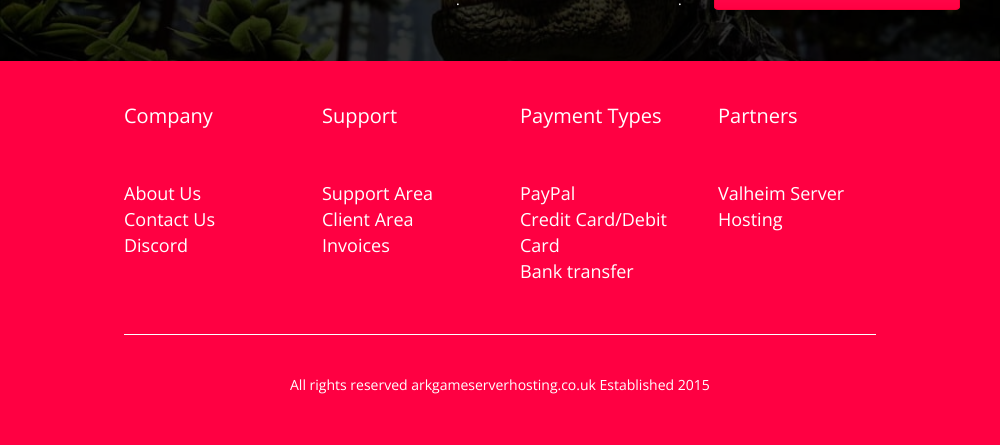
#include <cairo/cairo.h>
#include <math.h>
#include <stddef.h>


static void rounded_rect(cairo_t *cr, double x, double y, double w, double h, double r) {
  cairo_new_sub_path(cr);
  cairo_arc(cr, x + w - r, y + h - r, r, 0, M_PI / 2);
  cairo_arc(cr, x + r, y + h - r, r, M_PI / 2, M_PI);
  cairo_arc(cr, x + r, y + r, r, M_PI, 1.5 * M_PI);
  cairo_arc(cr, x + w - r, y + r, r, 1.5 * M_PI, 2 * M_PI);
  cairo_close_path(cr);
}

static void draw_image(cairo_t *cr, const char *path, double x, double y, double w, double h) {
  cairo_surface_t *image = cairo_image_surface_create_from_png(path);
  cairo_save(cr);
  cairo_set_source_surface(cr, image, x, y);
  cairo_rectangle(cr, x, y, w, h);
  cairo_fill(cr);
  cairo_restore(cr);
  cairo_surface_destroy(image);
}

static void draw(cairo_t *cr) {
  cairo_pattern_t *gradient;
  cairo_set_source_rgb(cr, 1, 1, 1);
  cairo_paint(cr);
  draw_image(cr, "images/1.png", 0, 0, 1000, 61);
  cairo_save(cr);
  rounded_rect(cr, 714, -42, 246, 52, 4);
  cairo_clip(cr);
  gradient = cairo_pattern_create_linear(837, -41, 837, 9);
  cairo_pattern_add_color_stop_rgba(gradient, 0, 1, 30 / 255.0, 96 / 255.0, 1);
  cairo_pattern_add_color_stop_rgba(gradient, 1, 1, 0, 66 / 255.0, 1);
  cairo_set_source(cr, gradient);
  cairo_pattern_destroy(gradient);
  cairo_rectangle(cr, 714, 0, 246, 9);
  cairo_fill(cr);
  cairo_restore(cr);
  rounded_rect(cr, 714.5, -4.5, 245, 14, 3.5);
  cairo_set_source_rgb(cr, 243 / 255.0, 0, 54 / 255.0);
  cairo_set_line_width(cr, 1);
  cairo_stroke(cr);
  cairo_set_source_rgb(cr, 1, 0, 66 / 255.0);
  cairo_rectangle(cr, 0, 61, 1000, 384);
  cairo_fill(cr);
  cairo_set_source_rgb(cr, 1, 1, 1);
  cairo_rectangle(cr, 124, 334, 752, 1);
  cairo_fill(cr);
  cairo_select_font_face(cr, "Open Sans", CAIRO_FONT_SLANT_NORMAL, CAIRO_FONT_WEIGHT_NORMAL);
  cairo_set_font_size(cr, 14);
  cairo_move_to(cr, 456, 5);
  cairo_show_text(cr, ".");
  cairo_move_to(cr, 678, 5);
  cairo_show_text(cr, ".");
  cairo_set_font_size(cr, 20);
  cairo_move_to(cr, 124, 123);
  cairo_show_text(cr, "Company");
  cairo_set_font_size(cr, 18);
  cairo_move_to(cr, 124, 200);
  cairo_show_text(cr, "About Us");
  cairo_move_to(cr, 124, 226);
  cairo_show_text(cr, "Contact Us");
  cairo_move_to(cr, 124, 252);
  cairo_show_text(cr, "Discord");
  cairo_set_font_size(cr, 20);
  cairo_move_to(cr, 322, 123);
  cairo_show_text(cr, "Support");
  cairo_set_font_size(cr, 18);
  cairo_move_to(cr, 322, 200);
  cairo_show_text(cr, "Support Area");
  cairo_move_to(cr, 322, 226);
  cairo_show_text(cr, "Client Area");
  cairo_move_to(cr, 322, 252);
  cairo_show_text(cr, "Invoices");
  cairo_set_font_size(cr, 20);
  cairo_move_to(cr, 520, 123);
  cairo_show_text(cr, "Payment Types");
  cairo_set_font_size(cr, 18);
  cairo_move_to(cr, 520, 200);
  cairo_show_text(cr, "PayPal");
  cairo_move_to(cr, 520, 226);
  cairo_show_text(cr, "Credit Card/Debit");
  cairo_move_to(cr, 520, 252);
  cairo_show_text(cr, "Card");
  cairo_move_to(cr, 520, 278);
  cairo_show_text(cr, "Bank transfer");
  cairo_set_font_size(cr, 20);
  cairo_move_to(cr, 718, 123);
  cairo_show_text(cr, "Partners");
  cairo_set_font_size(cr, 18);
  cairo_move_to(cr, 718, 200);
  cairo_show_text(cr, "Valheim Server");
  cairo_move_to(cr, 718, 226);
  cairo_show_text(cr, "Hosting");
  cairo_set_font_size(cr, 14);
  cairo_move_to(cr, 290, 390);
  cairo_show_text(cr, "All rights reserved arkgameserverhosting.co.uk Established 2015");
}

int main(void) {
  cairo_surface_t *surface = cairo_image_surface_create(CAIRO_FORMAT_RGB24, 1000, 445);
  cairo_t *cr = cairo_create(surface);
  cairo_font_options_t *options = cairo_font_options_create();
  cairo_font_options_set_hint_metrics(options, CAIRO_HINT_METRICS_OFF);
  cairo_font_options_set_hint_style(options, CAIRO_HINT_STYLE_NONE);
  cairo_set_font_options(cr, options);
  cairo_set_miter_limit(cr, 4);
  draw(cr);
  cairo_surface_write_to_png(surface, "out.png");
  cairo_font_options_destroy(options);
  cairo_destroy(cr);
  cairo_surface_destroy(surface);
  return 0;
}
